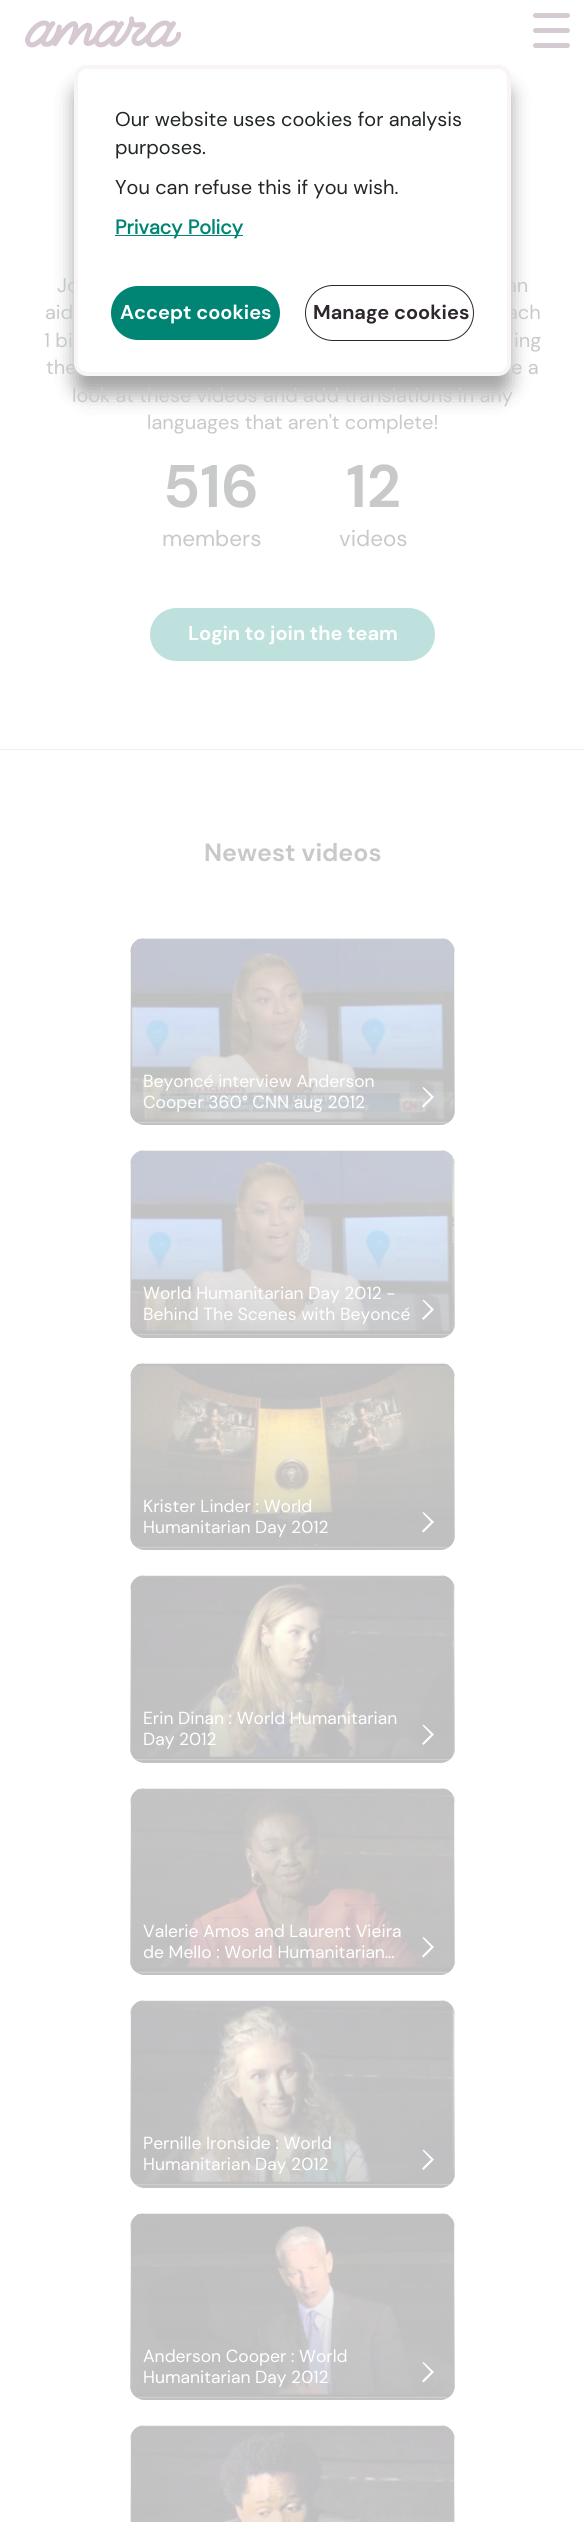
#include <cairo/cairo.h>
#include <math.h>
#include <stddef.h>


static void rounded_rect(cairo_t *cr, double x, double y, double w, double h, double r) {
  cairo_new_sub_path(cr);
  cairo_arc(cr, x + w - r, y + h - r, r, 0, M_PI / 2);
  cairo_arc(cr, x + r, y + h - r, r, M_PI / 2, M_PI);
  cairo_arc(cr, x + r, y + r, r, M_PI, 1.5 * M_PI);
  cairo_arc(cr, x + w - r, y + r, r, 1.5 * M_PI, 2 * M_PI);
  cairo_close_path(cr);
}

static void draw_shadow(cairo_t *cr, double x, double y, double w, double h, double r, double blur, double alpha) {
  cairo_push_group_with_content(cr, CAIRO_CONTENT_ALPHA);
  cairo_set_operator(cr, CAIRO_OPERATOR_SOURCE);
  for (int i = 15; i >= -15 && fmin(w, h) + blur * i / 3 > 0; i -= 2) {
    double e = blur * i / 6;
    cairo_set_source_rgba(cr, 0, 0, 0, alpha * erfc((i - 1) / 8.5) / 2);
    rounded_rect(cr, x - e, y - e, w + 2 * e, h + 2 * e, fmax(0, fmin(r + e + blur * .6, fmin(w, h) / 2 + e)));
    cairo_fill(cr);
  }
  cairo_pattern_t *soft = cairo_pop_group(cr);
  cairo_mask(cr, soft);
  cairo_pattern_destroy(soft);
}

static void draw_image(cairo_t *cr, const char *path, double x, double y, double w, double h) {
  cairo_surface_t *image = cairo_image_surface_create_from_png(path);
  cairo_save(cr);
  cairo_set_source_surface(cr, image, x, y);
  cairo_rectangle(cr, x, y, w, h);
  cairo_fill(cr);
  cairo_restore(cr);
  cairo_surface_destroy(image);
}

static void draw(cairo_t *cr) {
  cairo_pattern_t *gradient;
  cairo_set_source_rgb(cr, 1, 1, 1);
  cairo_paint(cr);
  draw_image(cr, "images/1.png", 25, 16, 156, 32);
  cairo_set_source_rgb(cr, 212 / 255.0, 202 / 255.0, 209 / 255.0);
  rounded_rect(cr, 533, 13, 37, 5, 2.5);
  cairo_fill(cr);
  rounded_rect(cr, 533, 28, 37, 5, 2.5);
  cairo_fill(cr);
  rounded_rect(cr, 533, 43, 37, 5, 2.5);
  cairo_fill(cr);
  cairo_set_source_rgb(cr, 0, 0, 0);
  draw_shadow(cr, 74, 84, 437, 311, 13, 9.5, 0.35);
  cairo_set_source_rgb(cr, 191 / 255.0, 225 / 255.0, 221 / 255.0);
  rounded_rect(cr, 150, 608, 285, 53, 26.5);
  cairo_fill(cr);
  cairo_set_source_rgb(cr, 241 / 255.0, 241 / 255.0, 241 / 255.0);
  cairo_rectangle(cr, 0, 749, 585, 1);
  cairo_fill(cr);
  cairo_set_source_rgb(cr, 200 / 255.0, 201 / 255.0, 201 / 255.0);
  rounded_rect(cr, 130, 938, 325, 187, 15);
  cairo_fill(cr);
  cairo_set_source_rgb(cr, 241 / 255.0, 241 / 255.0, 241 / 255.0);
  cairo_set_fill_rule(cr, CAIRO_FILL_RULE_EVEN_ODD);
  cairo_new_path(cr);
  cairo_move_to(cr, 130, 953);
  cairo_line_to(cr, 130, 1110);
  cairo_line_to(cr, 131, 1115);
  cairo_line_to(cr, 131, 948);
  cairo_close_path(cr);
  cairo_move_to(cr, 145, 938);
  cairo_line_to(cr, 140, 939);
  cairo_line_to(cr, 445, 939);
  cairo_line_to(cr, 440, 938);
  cairo_close_path(cr);
  cairo_move_to(cr, 455, 953);
  cairo_line_to(cr, 454, 948);
  cairo_line_to(cr, 454, 1115);
  cairo_line_to(cr, 455, 1110);
  cairo_close_path(cr);
  cairo_move_to(cr, 447, 1123);
  cairo_line_to(cr, 449, 1122);
  cairo_line_to(cr, 136, 1122);
  cairo_line_to(cr, 138, 1123);
  cairo_close_path(cr);
  cairo_fill(cr);
  draw_image(cr, "images/2.png", 131, 938, 323, 183);
  gradient = cairo_pattern_create_linear(293, 995, 293, 1125);
  cairo_pattern_add_color_stop_rgba(gradient, 0, 191 / 255.0, 191 / 255.0, 191 / 255.0, 0);
  cairo_pattern_add_color_stop_rgba(gradient, 1, 191 / 255.0, 191 / 255.0, 191 / 255.0, 0.7);
  cairo_set_source(cr, gradient);
  cairo_pattern_destroy(gradient);
  cairo_new_path(cr);
  cairo_move_to(cr, 130, 995);
  cairo_line_to(cr, 455, 995);
  cairo_line_to(cr, 455, 1110);
  cairo_curve_to(cr, 455, 1118.5, 448.5, 1125, 440, 1125);
  cairo_line_to(cr, 145, 1125);
  cairo_curve_to(cr, 136.5, 1125, 130, 1118.5, 130, 1110);
  cairo_close_path(cr);
  cairo_fill(cr);
  cairo_set_source_rgb(cr, 1, 1, 1);
  cairo_set_fill_rule(cr, CAIRO_FILL_RULE_WINDING);
  cairo_new_path(cr);
  cairo_move_to(cr, 423.5, 1087);
  cairo_line_to(cr, 422.5, 1088);
  cairo_line_to(cr, 431, 1097);
  cairo_line_to(cr, 422, 1106);
  cairo_line_to(cr, 423.5, 1107.5);
  cairo_line_to(cr, 434, 1097);
  cairo_close_path(cr);
  cairo_fill(cr);
  cairo_set_source_rgb(cr, 200 / 255.0, 201 / 255.0, 201 / 255.0);
  rounded_rect(cr, 130, 1150, 325, 188, 15);
  cairo_fill(cr);
  cairo_set_source_rgb(cr, 241 / 255.0, 241 / 255.0, 241 / 255.0);
  cairo_set_fill_rule(cr, CAIRO_FILL_RULE_EVEN_ODD);
  cairo_new_path(cr);
  cairo_move_to(cr, 130, 1165);
  cairo_line_to(cr, 130, 1323);
  cairo_line_to(cr, 131, 1328);
  cairo_line_to(cr, 131, 1160);
  cairo_close_path(cr);
  cairo_move_to(cr, 145, 1150);
  cairo_line_to(cr, 140, 1151);
  cairo_line_to(cr, 445, 1151);
  cairo_line_to(cr, 440, 1150);
  cairo_close_path(cr);
  cairo_move_to(cr, 455, 1165);
  cairo_line_to(cr, 454, 1160);
  cairo_line_to(cr, 454, 1328);
  cairo_line_to(cr, 455, 1323);
  cairo_close_path(cr);
  cairo_move_to(cr, 449, 1335);
  cairo_line_to(cr, 450, 1334);
  cairo_line_to(cr, 135, 1334);
  cairo_line_to(cr, 136, 1335);
  cairo_close_path(cr);
  cairo_fill(cr);
  draw_image(cr, "images/3.png", 131, 1151, 323, 183);
  gradient = cairo_pattern_create_linear(293, 1208, 293, 1338);
  cairo_pattern_add_color_stop_rgba(gradient, 0, 191 / 255.0, 191 / 255.0, 191 / 255.0, 0);
  cairo_pattern_add_color_stop_rgba(gradient, 1, 191 / 255.0, 191 / 255.0, 191 / 255.0, 0.7);
  cairo_set_source(cr, gradient);
  cairo_pattern_destroy(gradient);
  cairo_new_path(cr);
  cairo_move_to(cr, 130, 1208);
  cairo_line_to(cr, 455, 1208);
  cairo_line_to(cr, 455, 1323);
  cairo_curve_to(cr, 455, 1331.5, 448.5, 1338, 440, 1338);
  cairo_line_to(cr, 145, 1338);
  cairo_curve_to(cr, 136.5, 1338, 130, 1331.5, 130, 1323);
  cairo_close_path(cr);
  cairo_fill(cr);
  cairo_set_source_rgb(cr, 1, 1, 1);
  cairo_set_fill_rule(cr, CAIRO_FILL_RULE_WINDING);
  cairo_new_path(cr);
  cairo_move_to(cr, 423.5, 1299.5);
  cairo_line_to(cr, 422.5, 1300.5);
  cairo_line_to(cr, 431, 1309.5);
  cairo_line_to(cr, 422, 1318.5);
  cairo_line_to(cr, 423.5, 1320);
  cairo_line_to(cr, 434, 1309.5);
  cairo_close_path(cr);
  cairo_fill(cr);
  cairo_set_source_rgb(cr, 200 / 255.0, 201 / 255.0, 201 / 255.0);
  rounded_rect(cr, 130, 1363, 325, 187, 15);
  cairo_fill(cr);
  cairo_set_source_rgb(cr, 241 / 255.0, 241 / 255.0, 241 / 255.0);
  cairo_set_fill_rule(cr, CAIRO_FILL_RULE_EVEN_ODD);
  cairo_new_path(cr);
  cairo_move_to(cr, 130, 1378);
  cairo_line_to(cr, 130, 1535);
  cairo_line_to(cr, 131, 1540);
  cairo_line_to(cr, 131, 1373);
  cairo_close_path(cr);
  cairo_move_to(cr, 145, 1363);
  cairo_line_to(cr, 140, 1364);
  cairo_line_to(cr, 445, 1364);
  cairo_line_to(cr, 440, 1363);
  cairo_close_path(cr);
  cairo_move_to(cr, 455, 1378);
  cairo_line_to(cr, 454, 1373);
  cairo_line_to(cr, 454, 1540);
  cairo_line_to(cr, 455, 1535);
  cairo_close_path(cr);
  cairo_move_to(cr, 447, 1548);
  cairo_line_to(cr, 449, 1547);
  cairo_line_to(cr, 136, 1547);
  cairo_line_to(cr, 138, 1548);
  cairo_close_path(cr);
  cairo_fill(cr);
  draw_image(cr, "images/4.png", 131, 1363, 323, 183);
  gradient = cairo_pattern_create_linear(293, 1420, 293, 1550);
  cairo_pattern_add_color_stop_rgba(gradient, 0, 191 / 255.0, 191 / 255.0, 191 / 255.0, 0);
  cairo_pattern_add_color_stop_rgba(gradient, 1, 191 / 255.0, 191 / 255.0, 191 / 255.0, 0.7);
  cairo_set_source(cr, gradient);
  cairo_pattern_destroy(gradient);
  cairo_new_path(cr);
  cairo_move_to(cr, 130, 1420);
  cairo_line_to(cr, 455, 1420);
  cairo_line_to(cr, 455, 1535);
  cairo_curve_to(cr, 455, 1543.5, 448.5, 1550, 440, 1550);
  cairo_line_to(cr, 145, 1550);
  cairo_curve_to(cr, 136.5, 1550, 130, 1543.5, 130, 1535);
  cairo_close_path(cr);
  cairo_fill(cr);
  cairo_set_source_rgb(cr, 1, 1, 1);
  cairo_set_fill_rule(cr, CAIRO_FILL_RULE_WINDING);
  cairo_new_path(cr);
  cairo_move_to(cr, 423.5, 1512);
  cairo_line_to(cr, 422.5, 1513);
  cairo_line_to(cr, 431, 1522);
  cairo_line_to(cr, 422, 1531);
  cairo_line_to(cr, 423.5, 1532.5);
  cairo_line_to(cr, 434, 1522);
  cairo_close_path(cr);
  cairo_fill(cr);
  cairo_set_source_rgb(cr, 200 / 255.0, 201 / 255.0, 201 / 255.0);
  rounded_rect(cr, 130, 1575, 325, 188, 15);
  cairo_fill(cr);
  cairo_set_source_rgb(cr, 241 / 255.0, 241 / 255.0, 241 / 255.0);
  cairo_set_fill_rule(cr, CAIRO_FILL_RULE_EVEN_ODD);
  cairo_new_path(cr);
  cairo_move_to(cr, 130, 1590);
  cairo_line_to(cr, 130, 1748);
  cairo_line_to(cr, 131, 1753);
  cairo_line_to(cr, 131, 1585);
  cairo_close_path(cr);
  cairo_move_to(cr, 145, 1575);
  cairo_line_to(cr, 140, 1576);
  cairo_line_to(cr, 445, 1576);
  cairo_line_to(cr, 440, 1575);
  cairo_close_path(cr);
  cairo_move_to(cr, 455, 1590);
  cairo_line_to(cr, 454, 1585);
  cairo_line_to(cr, 454, 1753);
  cairo_line_to(cr, 455, 1748);
  cairo_close_path(cr);
  cairo_move_to(cr, 449, 1760);
  cairo_line_to(cr, 450, 1759);
  cairo_line_to(cr, 135, 1759);
  cairo_line_to(cr, 136, 1760);
  cairo_close_path(cr);
  cairo_fill(cr);
  draw_image(cr, "images/5.png", 131, 1576, 323, 183);
  gradient = cairo_pattern_create_linear(293, 1633, 293, 1763);
  cairo_pattern_add_color_stop_rgba(gradient, 0, 191 / 255.0, 191 / 255.0, 191 / 255.0, 0);
  cairo_pattern_add_color_stop_rgba(gradient, 1, 191 / 255.0, 191 / 255.0, 191 / 255.0, 0.7);
  cairo_set_source(cr, gradient);
  cairo_pattern_destroy(gradient);
  cairo_new_path(cr);
  cairo_move_to(cr, 130, 1633);
  cairo_line_to(cr, 455, 1633);
  cairo_line_to(cr, 455, 1748);
  cairo_curve_to(cr, 455, 1756.5, 448.5, 1763, 440, 1763);
  cairo_line_to(cr, 145, 1763);
  cairo_curve_to(cr, 136.5, 1763, 130, 1756.5, 130, 1748);
  cairo_close_path(cr);
  cairo_fill(cr);
  cairo_set_source_rgb(cr, 1, 1, 1);
  cairo_set_fill_rule(cr, CAIRO_FILL_RULE_WINDING);
  cairo_new_path(cr);
  cairo_move_to(cr, 423.5, 1724.5);
  cairo_line_to(cr, 422.5, 1725.5);
  cairo_line_to(cr, 431, 1734.5);
  cairo_line_to(cr, 422, 1743.5);
  cairo_line_to(cr, 423.5, 1745);
  cairo_line_to(cr, 434, 1734.5);
  cairo_close_path(cr);
  cairo_fill(cr);
  cairo_set_source_rgb(cr, 200 / 255.0, 201 / 255.0, 201 / 255.0);
  rounded_rect(cr, 130, 1788, 325, 187, 15);
  cairo_fill(cr);
  cairo_set_source_rgb(cr, 241 / 255.0, 241 / 255.0, 241 / 255.0);
  cairo_set_fill_rule(cr, CAIRO_FILL_RULE_EVEN_ODD);
  cairo_new_path(cr);
  cairo_move_to(cr, 130, 1803);
  cairo_line_to(cr, 130, 1960);
  cairo_line_to(cr, 131, 1965);
  cairo_line_to(cr, 131, 1798);
  cairo_close_path(cr);
  cairo_move_to(cr, 145, 1788);
  cairo_line_to(cr, 140, 1789);
  cairo_line_to(cr, 445, 1789);
  cairo_line_to(cr, 440, 1788);
  cairo_close_path(cr);
  cairo_move_to(cr, 455, 1803);
  cairo_line_to(cr, 454, 1798);
  cairo_line_to(cr, 454, 1965);
  cairo_line_to(cr, 455, 1960);
  cairo_close_path(cr);
  cairo_move_to(cr, 447, 1973);
  cairo_line_to(cr, 449, 1972);
  cairo_line_to(cr, 136, 1972);
  cairo_line_to(cr, 138, 1973);
  cairo_close_path(cr);
  cairo_fill(cr);
  draw_image(cr, "images/6.png", 131, 1788, 323, 183);
  gradient = cairo_pattern_create_linear(293, 1845, 293, 1975);
  cairo_pattern_add_color_stop_rgba(gradient, 0, 191 / 255.0, 191 / 255.0, 191 / 255.0, 0);
  cairo_pattern_add_color_stop_rgba(gradient, 1, 191 / 255.0, 191 / 255.0, 191 / 255.0, 0.7);
  cairo_set_source(cr, gradient);
  cairo_pattern_destroy(gradient);
  cairo_new_path(cr);
  cairo_move_to(cr, 130, 1845);
  cairo_line_to(cr, 455, 1845);
  cairo_line_to(cr, 455, 1960);
  cairo_curve_to(cr, 455, 1968.5, 448.5, 1975, 440, 1975);
  cairo_line_to(cr, 145, 1975);
  cairo_curve_to(cr, 136.5, 1975, 130, 1968.5, 130, 1960);
  cairo_close_path(cr);
  cairo_fill(cr);
  cairo_set_source_rgb(cr, 1, 1, 1);
  cairo_set_fill_rule(cr, CAIRO_FILL_RULE_WINDING);
  cairo_new_path(cr);
  cairo_move_to(cr, 423.5, 1937);
  cairo_line_to(cr, 422.5, 1938);
  cairo_line_to(cr, 431, 1947);
  cairo_line_to(cr, 422, 1956);
  cairo_line_to(cr, 423.5, 1957.5);
  cairo_line_to(cr, 434, 1947);
  cairo_close_path(cr);
  cairo_fill(cr);
  cairo_set_source_rgb(cr, 200 / 255.0, 201 / 255.0, 201 / 255.0);
  rounded_rect(cr, 130, 2000, 325, 188, 15);
  cairo_fill(cr);
  cairo_set_source_rgb(cr, 241 / 255.0, 241 / 255.0, 241 / 255.0);
  cairo_set_fill_rule(cr, CAIRO_FILL_RULE_EVEN_ODD);
  cairo_new_path(cr);
  cairo_move_to(cr, 130, 2015);
  cairo_line_to(cr, 130, 2173);
  cairo_line_to(cr, 131, 2178);
  cairo_line_to(cr, 131, 2010);
  cairo_close_path(cr);
  cairo_move_to(cr, 145, 2000);
  cairo_line_to(cr, 140, 2001);
  cairo_line_to(cr, 445, 2001);
  cairo_line_to(cr, 440, 2000);
  cairo_close_path(cr);
  cairo_move_to(cr, 455, 2015);
  cairo_line_to(cr, 454, 2010);
  cairo_line_to(cr, 454, 2178);
  cairo_line_to(cr, 455, 2173);
  cairo_close_path(cr);
  cairo_move_to(cr, 449, 2185);
  cairo_line_to(cr, 450, 2184);
  cairo_line_to(cr, 135, 2184);
  cairo_line_to(cr, 136, 2185);
  cairo_close_path(cr);
  cairo_fill(cr);
  draw_image(cr, "images/7.png", 131, 2001, 323, 183);
  gradient = cairo_pattern_create_linear(293, 2058, 293, 2188);
  cairo_pattern_add_color_stop_rgba(gradient, 0, 191 / 255.0, 191 / 255.0, 191 / 255.0, 0);
  cairo_pattern_add_color_stop_rgba(gradient, 1, 191 / 255.0, 191 / 255.0, 191 / 255.0, 0.7);
  cairo_set_source(cr, gradient);
  cairo_pattern_destroy(gradient);
  cairo_new_path(cr);
  cairo_move_to(cr, 130, 2058);
  cairo_line_to(cr, 455, 2058);
  cairo_line_to(cr, 455, 2173);
  cairo_curve_to(cr, 455, 2181.5, 448.5, 2188, 440, 2188);
  cairo_line_to(cr, 145, 2188);
  cairo_curve_to(cr, 136.5, 2188, 130, 2181.5, 130, 2173);
  cairo_close_path(cr);
  cairo_fill(cr);
  cairo_set_source_rgb(cr, 1, 1, 1);
  cairo_set_fill_rule(cr, CAIRO_FILL_RULE_WINDING);
  cairo_new_path(cr);
  cairo_move_to(cr, 423.5, 2149.5);
  cairo_line_to(cr, 422.5, 2150.5);
  cairo_line_to(cr, 431, 2159.5);
  cairo_line_to(cr, 422, 2168.5);
  cairo_line_to(cr, 423.5, 2170);
  cairo_line_to(cr, 434, 2159.5);
  cairo_close_path(cr);
  cairo_fill(cr);
  cairo_set_source_rgb(cr, 200 / 255.0, 201 / 255.0, 201 / 255.0);
  rounded_rect(cr, 130, 2213, 325, 187, 15);
  cairo_fill(cr);
  cairo_set_source_rgb(cr, 241 / 255.0, 241 / 255.0, 241 / 255.0);
  cairo_set_fill_rule(cr, CAIRO_FILL_RULE_EVEN_ODD);
  cairo_new_path(cr);
  cairo_move_to(cr, 130, 2228);
  cairo_line_to(cr, 130, 2385);
  cairo_line_to(cr, 131, 2390);
  cairo_line_to(cr, 131, 2223);
  cairo_close_path(cr);
  cairo_move_to(cr, 145, 2213);
  cairo_line_to(cr, 140, 2214);
  cairo_line_to(cr, 445, 2214);
  cairo_line_to(cr, 440, 2213);
  cairo_close_path(cr);
  cairo_move_to(cr, 455, 2228);
  cairo_line_to(cr, 454, 2223);
  cairo_line_to(cr, 454, 2390);
  cairo_line_to(cr, 455, 2385);
  cairo_close_path(cr);
  cairo_move_to(cr, 447, 2398);
  cairo_line_to(cr, 449, 2397);
  cairo_line_to(cr, 136, 2397);
  cairo_line_to(cr, 138, 2398);
  cairo_close_path(cr);
  cairo_fill(cr);
  draw_image(cr, "images/8.png", 131, 2213, 323, 183);
  gradient = cairo_pattern_create_linear(293, 2270, 293, 2400);
  cairo_pattern_add_color_stop_rgba(gradient, 0, 191 / 255.0, 191 / 255.0, 191 / 255.0, 0);
  cairo_pattern_add_color_stop_rgba(gradient, 1, 191 / 255.0, 191 / 255.0, 191 / 255.0, 0.7);
  cairo_set_source(cr, gradient);
  cairo_pattern_destroy(gradient);
  cairo_new_path(cr);
  cairo_move_to(cr, 130, 2270);
  cairo_line_to(cr, 455, 2270);
  cairo_line_to(cr, 455, 2385);
  cairo_curve_to(cr, 455, 2393.5, 448.5, 2400, 440, 2400);
  cairo_line_to(cr, 145, 2400);
  cairo_curve_to(cr, 136.5, 2400, 130, 2393.5, 130, 2385);
  cairo_close_path(cr);
  cairo_fill(cr);
  cairo_set_source_rgb(cr, 1, 1, 1);
  cairo_set_fill_rule(cr, CAIRO_FILL_RULE_WINDING);
  cairo_new_path(cr);
  cairo_move_to(cr, 423.5, 2362);
  cairo_line_to(cr, 422.5, 2363);
  cairo_line_to(cr, 431, 2372);
  cairo_line_to(cr, 422, 2381);
  cairo_line_to(cr, 423.5, 2382.5);
  cairo_line_to(cr, 434, 2372);
  cairo_close_path(cr);
  cairo_fill(cr);
  cairo_set_source_rgb(cr, 200 / 255.0, 201 / 255.0, 201 / 255.0);
  rounded_rect(cr, 130, 2425, 325, 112, 15);
  cairo_fill(cr);
  cairo_set_source_rgb(cr, 241 / 255.0, 241 / 255.0, 241 / 255.0);
  cairo_set_fill_rule(cr, CAIRO_FILL_RULE_EVEN_ODD);
  cairo_new_path(cr);
  cairo_move_to(cr, 130, 2440);
  cairo_line_to(cr, 130, 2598);
  cairo_line_to(cr, 131, 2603);
  cairo_line_to(cr, 131, 2435);
  cairo_close_path(cr);
  cairo_move_to(cr, 145, 2425);
  cairo_line_to(cr, 140, 2426);
  cairo_line_to(cr, 445, 2426);
  cairo_line_to(cr, 440, 2425);
  cairo_close_path(cr);
  cairo_move_to(cr, 455, 2440);
  cairo_line_to(cr, 454, 2435);
  cairo_line_to(cr, 454, 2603);
  cairo_line_to(cr, 455, 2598);
  cairo_close_path(cr);
  cairo_move_to(cr, 449, 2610);
  cairo_line_to(cr, 450, 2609);
  cairo_line_to(cr, 135, 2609);
  cairo_line_to(cr, 136, 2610);
  cairo_close_path(cr);
  cairo_fill(cr);
  draw_image(cr, "images/9.png", 131, 2426, 323, 96);
  gradient = cairo_pattern_create_linear(293, 2483, 293, 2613);
  cairo_pattern_add_color_stop_rgba(gradient, 0, 191 / 255.0, 191 / 255.0, 191 / 255.0, 0);
  cairo_pattern_add_color_stop_rgba(gradient, 1, 191 / 255.0, 191 / 255.0, 191 / 255.0, 0.7);
  cairo_set_source(cr, gradient);
  cairo_pattern_destroy(gradient);
  cairo_rectangle(cr, 130, 2491, 325, 31);
  cairo_fill(cr);
  cairo_select_font_face(cr, "DM Sans", CAIRO_FONT_SLANT_NORMAL, CAIRO_FONT_WEIGHT_NORMAL);
  cairo_set_font_size(cr, 20);
  cairo_set_source_rgb(cr, 200 / 255.0, 201 / 255.0, 201 / 255.0);
  cairo_move_to(cr, 57, 292);
  cairo_show_text(cr, "Jo");
  cairo_move_to(cr, 506, 292);
  cairo_show_text(cr, "an");
  cairo_move_to(cr, 45, 319);
  cairo_show_text(cr, "aid");
  cairo_move_to(cr, 507, 319);
  cairo_show_text(cr, "ach");
  cairo_move_to(cr, 44, 347);
  cairo_show_text(cr, "1 bi");
  cairo_move_to(cr, 514, 347);
  cairo_show_text(cr, "ing");
  cairo_move_to(cr, 46, 374);
  cairo_show_text(cr, "the");
  cairo_set_source_rgb(cr, 1, 1, 1);
  rounded_rect(cr, 76, 67, 433, 307, 11);
  cairo_fill_preserve(cr);
  cairo_set_source_rgb(cr, 248 / 255.0, 244 / 255.0, 247 / 255.0);
  cairo_set_line_width(cr, 4);
  cairo_stroke(cr);
  rounded_rect(cr, 305.5, 285.5, 168, 55, 27.5);
  cairo_set_source_rgb(cr, 46 / 255.0, 38 / 255.0, 44 / 255.0);
  cairo_set_line_width(cr, 1);
  cairo_stroke(cr);
  cairo_select_font_face(cr, "DM Sans", CAIRO_FONT_SLANT_NORMAL, CAIRO_FONT_WEIGHT_BOLD);
  cairo_move_to(cr, 313, 319);
  cairo_show_text(cr, "Manage cookies");
  cairo_set_source_rgb(cr, 0, 133 / 255.0, 117 / 255.0);
  rounded_rect(cr, 111, 286, 169, 54, 27);
  cairo_fill(cr);
  cairo_set_source_rgb(cr, 1, 1, 1);
  cairo_move_to(cr, 120, 319);
  cairo_show_text(cr, "Accept cookies");
  cairo_set_source_rgb(cr, 0, 133 / 255.0, 117 / 255.0);
  cairo_rectangle(cr, 115, 235, 128, 1);
  cairo_fill(cr);
  cairo_select_font_face(cr, "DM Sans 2", CAIRO_FONT_SLANT_NORMAL, CAIRO_FONT_WEIGHT_BOLD);
  cairo_move_to(cr, 115, 234);
  cairo_show_text(cr, "Privacy Policy");
  cairo_select_font_face(cr, "DM Sans", CAIRO_FONT_SLANT_NORMAL, CAIRO_FONT_WEIGHT_NORMAL);
  cairo_set_source_rgb(cr, 34 / 255.0, 38 / 255.0, 38 / 255.0);
  cairo_move_to(cr, 115, 194);
  cairo_show_text(cr, "You can refuse this if you wish.");
  cairo_move_to(cr, 115, 154);
  cairo_show_text(cr, "purposes.");
  cairo_move_to(cr, 115, 126);
  cairo_show_text(cr, "Our website uses cookies for analysis");
  cairo_set_source_rgb(cr, 200 / 255.0, 201 / 255.0, 201 / 255.0);
  cairo_move_to(cr, 511, 374);
  cairo_show_text(cr, "e a");
  cairo_move_to(cr, 72, 402);
  cairo_show_text(cr, "look at these videos and add translations in any");
  cairo_move_to(cr, 147, 429);
  cairo_show_text(cr, "languages that aren't complete!");
  cairo_select_font_face(cr, "DM Sans", CAIRO_FONT_SLANT_NORMAL, CAIRO_FONT_WEIGHT_BOLD);
  cairo_set_font_size(cr, 60);
  cairo_move_to(cr, 163, 507);
  cairo_show_text(cr, "516");
  cairo_select_font_face(cr, "DM Sans", CAIRO_FONT_SLANT_NORMAL, CAIRO_FONT_WEIGHT_NORMAL);
  cairo_set_font_size(cr, 22.5);
  cairo_move_to(cr, 162, 546);
  cairo_show_text(cr, "members");
  cairo_select_font_face(cr, "DM Sans", CAIRO_FONT_SLANT_NORMAL, CAIRO_FONT_WEIGHT_BOLD);
  cairo_set_font_size(cr, 60);
  cairo_move_to(cr, 346, 507);
  cairo_show_text(cr, "12");
  cairo_select_font_face(cr, "DM Sans", CAIRO_FONT_SLANT_NORMAL, CAIRO_FONT_WEIGHT_NORMAL);
  cairo_set_font_size(cr, 22.5);
  cairo_move_to(cr, 339, 546);
  cairo_show_text(cr, "videos");
  cairo_select_font_face(cr, "DM Sans", CAIRO_FONT_SLANT_NORMAL, CAIRO_FONT_WEIGHT_BOLD);
  cairo_set_font_size(cr, 20);
  cairo_set_source_rgb(cr, 1, 1, 1);
  cairo_move_to(cr, 188, 640);
  cairo_show_text(cr, "Login to join the team");
  cairo_set_font_size(cr, 25);
  cairo_set_source_rgb(cr, 200 / 255.0, 201 / 255.0, 201 / 255.0);
  cairo_move_to(cr, 204, 861);
  cairo_show_text(cr, "Newest videos");
  cairo_select_font_face(cr, "DM Sans", CAIRO_FONT_SLANT_NORMAL, CAIRO_FONT_WEIGHT_NORMAL);
  cairo_set_font_size(cr, 17.5);
  cairo_set_source_rgb(cr, 1, 1, 1);
  cairo_move_to(cr, 143, 1087);
  cairo_show_text(cr, "Beyoncé interview Anderson");
  cairo_move_to(cr, 143, 1108);
  cairo_show_text(cr, "Cooper 360° CNN aug 2012");
  cairo_move_to(cr, 143, 1299);
  cairo_show_text(cr, "World Humanitarian Day 2012 -");
  cairo_move_to(cr, 143, 1320);
  cairo_show_text(cr, "Behind The Scenes with Beyoncé");
  cairo_move_to(cr, 143, 1512);
  cairo_show_text(cr, "Krister Linder : World");
  cairo_move_to(cr, 143, 1533);
  cairo_show_text(cr, "Humanitarian Day 2012");
  cairo_move_to(cr, 143, 1724);
  cairo_show_text(cr, "Erin Dinan : World Humanitarian");
  cairo_move_to(cr, 143, 1745);
  cairo_show_text(cr, "Day 2012");
  cairo_move_to(cr, 143, 1937);
  cairo_show_text(cr, "Valerie Amos and Laurent Vieira");
  cairo_move_to(cr, 143, 1958);
  cairo_show_text(cr, "de Mello : World Humanitarian…");
  cairo_move_to(cr, 143, 2149);
  cairo_show_text(cr, "Pernille Ironside : World");
  cairo_move_to(cr, 143, 2170);
  cairo_show_text(cr, "Humanitarian Day 2012");
  cairo_move_to(cr, 143, 2362);
  cairo_show_text(cr, "Anderson Cooper : World");
  cairo_move_to(cr, 143, 2383);
  cairo_show_text(cr, "Humanitarian Day 2012");
}

int main(void) {
  cairo_surface_t *surface = cairo_image_surface_create(CAIRO_FORMAT_RGB24, 585, 2522);
  cairo_t *cr = cairo_create(surface);
  cairo_font_options_t *options = cairo_font_options_create();
  cairo_font_options_set_hint_metrics(options, CAIRO_HINT_METRICS_OFF);
  cairo_font_options_set_hint_style(options, CAIRO_HINT_STYLE_NONE);
  cairo_set_font_options(cr, options);
  cairo_set_miter_limit(cr, 4);
  draw(cr);
  cairo_surface_write_to_png(surface, "out.png");
  cairo_font_options_destroy(options);
  cairo_destroy(cr);
  cairo_surface_destroy(surface);
  return 0;
}
